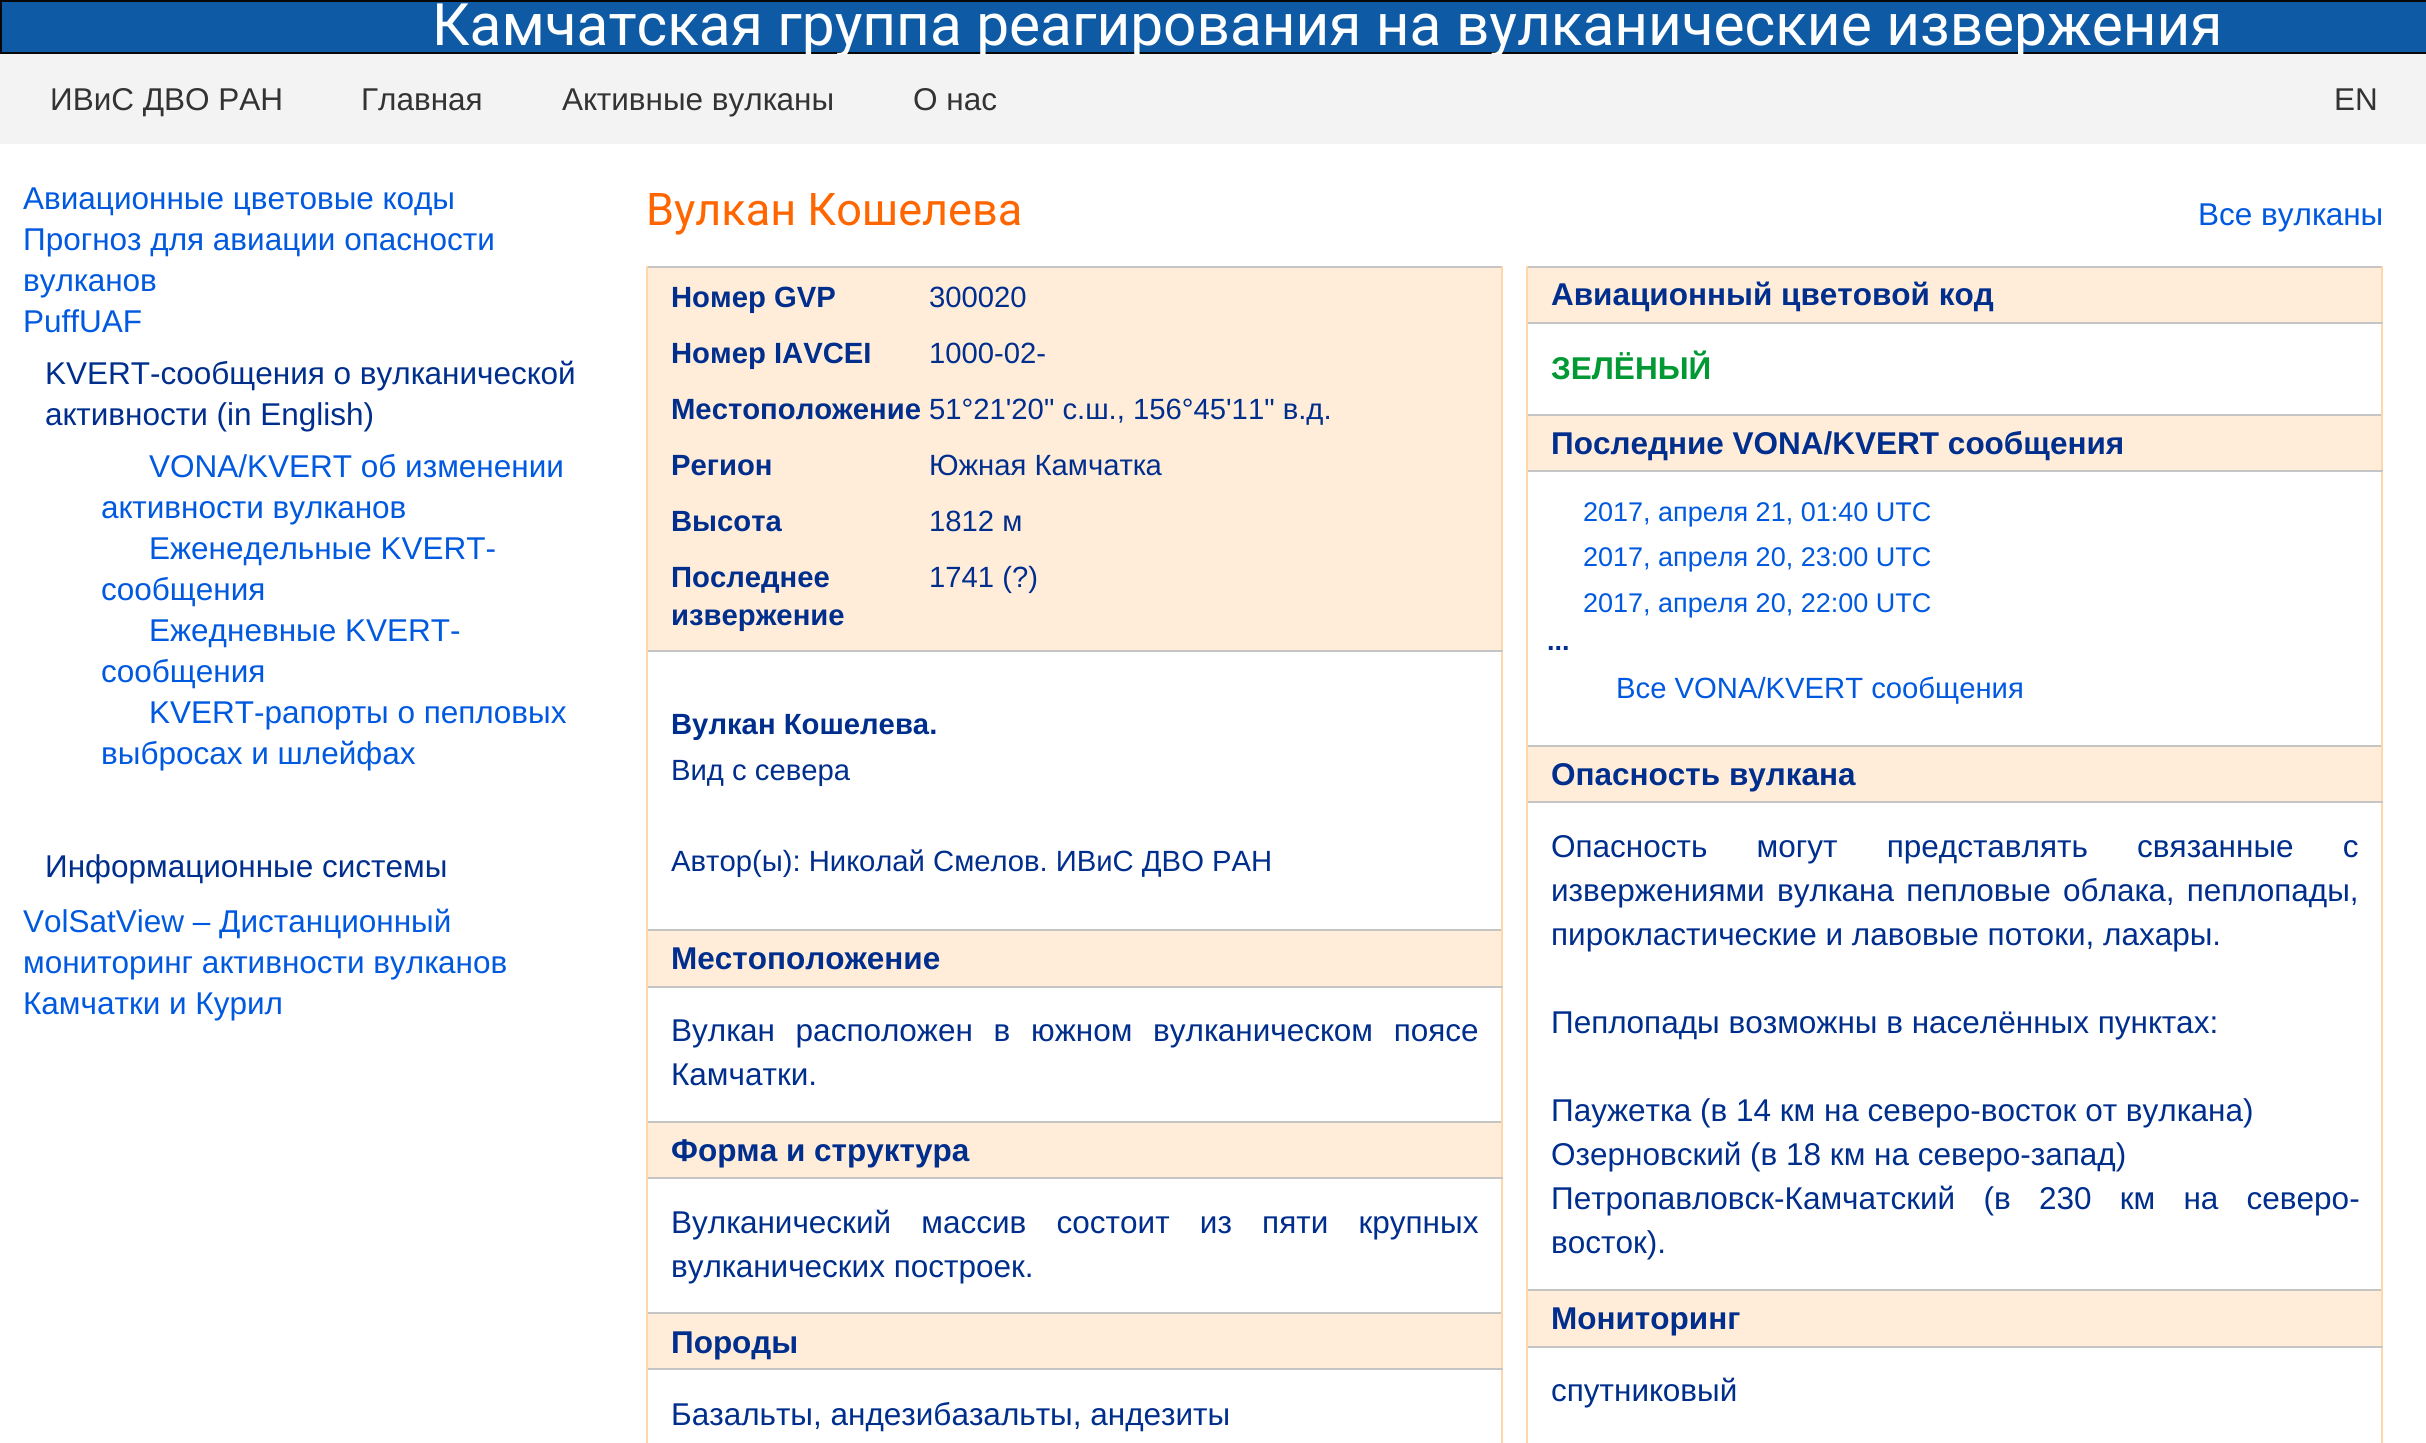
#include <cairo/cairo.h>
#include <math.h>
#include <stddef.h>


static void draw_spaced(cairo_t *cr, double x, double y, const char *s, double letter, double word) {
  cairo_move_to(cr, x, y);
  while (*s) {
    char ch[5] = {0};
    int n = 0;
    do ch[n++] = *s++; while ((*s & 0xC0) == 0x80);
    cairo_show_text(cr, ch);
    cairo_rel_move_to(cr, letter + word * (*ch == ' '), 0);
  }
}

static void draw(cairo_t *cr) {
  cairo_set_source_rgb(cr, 1, 1, 1);
  cairo_paint(cr);
  cairo_set_source_rgb(cr, 14 / 255.0, 90 / 255.0, 165 / 255.0);
  cairo_rectangle(cr, 1, 1, 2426, 52);
  cairo_fill_preserve(cr);
  cairo_set_source_rgb(cr, 8 / 255.0, 8 / 255.0, 8 / 255.0);
  cairo_stroke(cr);
  cairo_set_source_rgb(cr, 1, 236 / 255.0, 217 / 255.0);
  cairo_rectangle(cr, 648, 268, 853, 382);
  cairo_fill(cr);
  cairo_set_source_rgb(cr, 197 / 255.0, 197 / 255.0, 197 / 255.0);
  cairo_rectangle(cr, 646, 266, 857, 2);
  cairo_fill(cr);
  cairo_rectangle(cr, 646, 929, 857, 2);
  cairo_fill(cr);
  cairo_rectangle(cr, 646, 1121, 857, 2);
  cairo_fill(cr);
  cairo_rectangle(cr, 646, 1312, 857, 2);
  cairo_fill(cr);
  cairo_set_source_rgb(cr, 1, 213 / 255.0, 170 / 255.0);
  cairo_rectangle(cr, 1501, 1368, 2, 75);
  cairo_fill(cr);
  cairo_rectangle(cr, 1501, 1177, 2, 193);
  cairo_fill(cr);
  cairo_rectangle(cr, 1501, 986, 2, 193);
  cairo_fill(cr);
  cairo_rectangle(cr, 1501, 650, 2, 338);
  cairo_fill(cr);
  cairo_rectangle(cr, 1501, 266, 2, 387);
  cairo_fill(cr);
  cairo_rectangle(cr, 646, 1368, 2, 75);
  cairo_fill(cr);
  cairo_set_source_rgb(cr, 197 / 255.0, 197 / 255.0, 197 / 255.0);
  cairo_rectangle(cr, 646, 1368, 857, 2);
  cairo_fill(cr);
  cairo_set_source_rgb(cr, 1, 213 / 255.0, 170 / 255.0);
  cairo_rectangle(cr, 646, 1177, 2, 193);
  cairo_fill(cr);
  cairo_set_source_rgb(cr, 197 / 255.0, 197 / 255.0, 197 / 255.0);
  cairo_rectangle(cr, 646, 1177, 857, 2);
  cairo_fill(cr);
  cairo_set_source_rgb(cr, 1, 213 / 255.0, 170 / 255.0);
  cairo_rectangle(cr, 646, 986, 2, 193);
  cairo_fill(cr);
  cairo_set_source_rgb(cr, 197 / 255.0, 197 / 255.0, 197 / 255.0);
  cairo_rectangle(cr, 646, 986, 857, 2);
  cairo_fill(cr);
  cairo_set_source_rgb(cr, 1, 213 / 255.0, 170 / 255.0);
  cairo_rectangle(cr, 646, 650, 2, 338);
  cairo_fill(cr);
  cairo_set_source_rgb(cr, 197 / 255.0, 197 / 255.0, 197 / 255.0);
  cairo_rectangle(cr, 646, 650, 857, 2);
  cairo_fill(cr);
  cairo_set_source_rgb(cr, 1, 213 / 255.0, 170 / 255.0);
  cairo_rectangle(cr, 646, 266, 2, 387);
  cairo_fill(cr);
  cairo_set_source_rgb(cr, 1, 236 / 255.0, 217 / 255.0);
  cairo_rectangle(cr, 648, 931, 853, 55);
  cairo_fill(cr);
  cairo_rectangle(cr, 648, 1123, 853, 54);
  cairo_fill(cr);
  cairo_rectangle(cr, 648, 1314, 853, 54);
  cairo_fill(cr);
  cairo_rectangle(cr, 1528, 268, 853, 54);
  cairo_fill(cr);
  cairo_set_source_rgb(cr, 197 / 255.0, 197 / 255.0, 197 / 255.0);
  cairo_rectangle(cr, 1526, 266, 857, 2);
  cairo_fill(cr);
  cairo_rectangle(cr, 1526, 414, 857, 2);
  cairo_fill(cr);
  cairo_rectangle(cr, 1526, 745, 857, 2);
  cairo_fill(cr);
  cairo_rectangle(cr, 1526, 1289, 857, 2);
  cairo_fill(cr);
  cairo_set_source_rgb(cr, 1, 213 / 255.0, 170 / 255.0);
  cairo_rectangle(cr, 2381, 1346, 2, 97);
  cairo_fill(cr);
  cairo_rectangle(cr, 2381, 801, 2, 547);
  cairo_fill(cr);
  cairo_rectangle(cr, 2381, 470, 2, 333);
  cairo_fill(cr);
  cairo_rectangle(cr, 2381, 322, 2, 151);
  cairo_fill(cr);
  cairo_rectangle(cr, 2381, 266, 2, 58);
  cairo_fill(cr);
  cairo_rectangle(cr, 1526, 1346, 2, 97);
  cairo_fill(cr);
  cairo_set_source_rgb(cr, 197 / 255.0, 197 / 255.0, 197 / 255.0);
  cairo_rectangle(cr, 1526, 1346, 857, 2);
  cairo_fill(cr);
  cairo_set_source_rgb(cr, 1, 213 / 255.0, 170 / 255.0);
  cairo_rectangle(cr, 1526, 801, 2, 547);
  cairo_fill(cr);
  cairo_set_source_rgb(cr, 197 / 255.0, 197 / 255.0, 197 / 255.0);
  cairo_rectangle(cr, 1526, 801, 857, 2);
  cairo_fill(cr);
  cairo_set_source_rgb(cr, 1, 213 / 255.0, 170 / 255.0);
  cairo_rectangle(cr, 1526, 470, 2, 333);
  cairo_fill(cr);
  cairo_set_source_rgb(cr, 197 / 255.0, 197 / 255.0, 197 / 255.0);
  cairo_rectangle(cr, 1526, 470, 857, 2);
  cairo_fill(cr);
  cairo_set_source_rgb(cr, 1, 213 / 255.0, 170 / 255.0);
  cairo_rectangle(cr, 1526, 322, 2, 151);
  cairo_fill(cr);
  cairo_set_source_rgb(cr, 197 / 255.0, 197 / 255.0, 197 / 255.0);
  cairo_rectangle(cr, 1526, 322, 857, 2);
  cairo_fill(cr);
  cairo_set_source_rgb(cr, 1, 213 / 255.0, 170 / 255.0);
  cairo_rectangle(cr, 1526, 266, 2, 58);
  cairo_fill(cr);
  cairo_set_source_rgb(cr, 1, 236 / 255.0, 217 / 255.0);
  cairo_rectangle(cr, 1528, 416, 853, 54);
  cairo_fill(cr);
  cairo_rectangle(cr, 1528, 747, 853, 54);
  cairo_fill(cr);
  cairo_rectangle(cr, 1528, 1291, 853, 55);
  cairo_fill(cr);
  cairo_select_font_face(cr, "Roboto", CAIRO_FONT_SLANT_NORMAL, CAIRO_FONT_WEIGHT_NORMAL);
  cairo_set_font_size(cr, 58.5);
  cairo_set_source_rgb(cr, 1, 1, 1);
  cairo_move_to(cr, 432, 45);
  cairo_show_text(cr, "Камчатская группа реагирования на вулканические извержения");
  cairo_set_source_rgb(cr, 243 / 255.0, 243 / 255.0, 243 / 255.0);
  cairo_rectangle(cr, 0, 54, 2426, 90);
  cairo_fill(cr);
  cairo_select_font_face(cr, "Liberation Sans", CAIRO_FONT_SLANT_NORMAL, CAIRO_FONT_WEIGHT_NORMAL);
  cairo_set_font_size(cr, 31.5);
  cairo_set_source_rgb(cr, 51 / 255.0, 51 / 255.0, 51 / 255.0);
  cairo_move_to(cr, 50, 110);
  cairo_show_text(cr, "ИВиС ДВО РАН");
  cairo_move_to(cr, 361, 110);
  cairo_show_text(cr, "Главная");
  cairo_move_to(cr, 562, 110);
  cairo_show_text(cr, "Активные вулканы");
  cairo_move_to(cr, 913, 110);
  cairo_show_text(cr, "О нас");
  cairo_move_to(cr, 2334, 110);
  cairo_show_text(cr, "EN");
  cairo_set_source_rgb(cr, 0, 89 / 255.0, 223 / 255.0);
  cairo_move_to(cr, 23, 209);
  cairo_show_text(cr, "Авиационные цветовые коды");
  cairo_move_to(cr, 23, 250);
  cairo_show_text(cr, "Прогноз для авиации опасности");
  cairo_move_to(cr, 23, 291);
  cairo_show_text(cr, "вулканов");
  cairo_move_to(cr, 23, 332);
  cairo_show_text(cr, "PuffUAF");
  cairo_set_source_rgb(cr, 0, 46 / 255.0, 140 / 255.0);
  cairo_move_to(cr, 45, 384);
  cairo_show_text(cr, "KVERT-сообщения о вулканической");
  cairo_move_to(cr, 45, 425);
  cairo_show_text(cr, "активности (in English)");
  cairo_set_source_rgb(cr, 0, 89 / 255.0, 223 / 255.0);
  cairo_move_to(cr, 149, 477);
  cairo_show_text(cr, "VONA/KVERT об изменении");
  cairo_move_to(cr, 101, 518);
  cairo_show_text(cr, "активности вулканов");
  cairo_move_to(cr, 149, 559);
  cairo_show_text(cr, "Еженедельные KVERT-");
  cairo_move_to(cr, 101, 600);
  cairo_show_text(cr, "сообщения");
  cairo_move_to(cr, 149, 641);
  cairo_show_text(cr, "Ежедневные KVERT-");
  cairo_move_to(cr, 101, 682);
  cairo_show_text(cr, "сообщения");
  cairo_move_to(cr, 149, 723);
  cairo_show_text(cr, "KVERT-рапорты о пепловых");
  cairo_move_to(cr, 101, 764);
  cairo_show_text(cr, "выбросах и шлейфах");
  cairo_set_source_rgb(cr, 0, 46 / 255.0, 140 / 255.0);
  cairo_move_to(cr, 45, 877);
  cairo_show_text(cr, "Информационные системы");
  cairo_set_source_rgb(cr, 0, 89 / 255.0, 223 / 255.0);
  cairo_move_to(cr, 23, 932);
  cairo_show_text(cr, "VolSatView – Дистанционный");
  cairo_move_to(cr, 23, 973);
  cairo_show_text(cr, "мониторинг активности вулканов");
  cairo_move_to(cr, 23, 1014);
  cairo_show_text(cr, "Камчатки и Курил");
  cairo_select_font_face(cr, "Roboto", CAIRO_FONT_SLANT_NORMAL, CAIRO_FONT_WEIGHT_NORMAL);
  cairo_set_font_size(cr, 45);
  cairo_set_source_rgb(cr, 1, 102 / 255.0, 0);
  cairo_move_to(cr, 646, 225);
  cairo_show_text(cr, "Вулкан Кошелева");
  cairo_select_font_face(cr, "Liberation Sans", CAIRO_FONT_SLANT_NORMAL, CAIRO_FONT_WEIGHT_NORMAL);
  cairo_set_font_size(cr, 31.5);
  cairo_set_source_rgb(cr, 0, 89 / 255.0, 223 / 255.0);
  cairo_move_to(cr, 2198, 225);
  cairo_show_text(cr, "Все вулканы");
  cairo_select_font_face(cr, "Liberation Sans", CAIRO_FONT_SLANT_NORMAL, CAIRO_FONT_WEIGHT_BOLD);
  cairo_set_font_size(cr, 29.25);
  cairo_set_source_rgb(cr, 0, 46 / 255.0, 140 / 255.0);
  cairo_move_to(cr, 671, 307);
  cairo_show_text(cr, "Номер GVP");
  cairo_select_font_face(cr, "Liberation Sans", CAIRO_FONT_SLANT_NORMAL, CAIRO_FONT_WEIGHT_NORMAL);
  cairo_move_to(cr, 929, 307);
  cairo_show_text(cr, "300020");
  cairo_select_font_face(cr, "Liberation Sans", CAIRO_FONT_SLANT_NORMAL, CAIRO_FONT_WEIGHT_BOLD);
  cairo_move_to(cr, 671, 363);
  cairo_show_text(cr, "Номер IAVCEI");
  cairo_select_font_face(cr, "Liberation Sans", CAIRO_FONT_SLANT_NORMAL, CAIRO_FONT_WEIGHT_NORMAL);
  cairo_move_to(cr, 929, 363);
  cairo_show_text(cr, "1000-02-");
  cairo_select_font_face(cr, "Liberation Sans", CAIRO_FONT_SLANT_NORMAL, CAIRO_FONT_WEIGHT_BOLD);
  cairo_move_to(cr, 671, 419);
  cairo_show_text(cr, "Местоположение");
  cairo_select_font_face(cr, "Liberation Sans", CAIRO_FONT_SLANT_NORMAL, CAIRO_FONT_WEIGHT_NORMAL);
  cairo_move_to(cr, 929, 419);
  cairo_show_text(cr, "51°21'20\" с.ш., 156°45'11\" в.д.");
  cairo_select_font_face(cr, "Liberation Sans", CAIRO_FONT_SLANT_NORMAL, CAIRO_FONT_WEIGHT_BOLD);
  cairo_move_to(cr, 671, 475);
  cairo_show_text(cr, "Регион");
  cairo_select_font_face(cr, "Liberation Sans", CAIRO_FONT_SLANT_NORMAL, CAIRO_FONT_WEIGHT_NORMAL);
  cairo_move_to(cr, 929, 475);
  cairo_show_text(cr, "Южная Камчатка");
  cairo_select_font_face(cr, "Liberation Sans", CAIRO_FONT_SLANT_NORMAL, CAIRO_FONT_WEIGHT_BOLD);
  cairo_move_to(cr, 671, 531);
  cairo_show_text(cr, "Высота");
  cairo_select_font_face(cr, "Liberation Sans", CAIRO_FONT_SLANT_NORMAL, CAIRO_FONT_WEIGHT_NORMAL);
  cairo_move_to(cr, 929, 531);
  cairo_show_text(cr, "1812 м");
  cairo_select_font_face(cr, "Liberation Sans", CAIRO_FONT_SLANT_NORMAL, CAIRO_FONT_WEIGHT_BOLD);
  cairo_move_to(cr, 671, 587);
  cairo_show_text(cr, "Последнее");
  cairo_move_to(cr, 671, 625);
  cairo_show_text(cr, "извержение");
  cairo_select_font_face(cr, "Liberation Sans", CAIRO_FONT_SLANT_NORMAL, CAIRO_FONT_WEIGHT_NORMAL);
  cairo_move_to(cr, 929, 587);
  cairo_show_text(cr, "1741 (?)");
  cairo_select_font_face(cr, "Liberation Sans", CAIRO_FONT_SLANT_NORMAL, CAIRO_FONT_WEIGHT_BOLD);
  cairo_move_to(cr, 671, 734);
  cairo_show_text(cr, "Вулкан Кошелева.");
  cairo_select_font_face(cr, "Liberation Sans", CAIRO_FONT_SLANT_NORMAL, CAIRO_FONT_WEIGHT_NORMAL);
  cairo_move_to(cr, 671, 780);
  cairo_show_text(cr, "Вид с севера");
  cairo_move_to(cr, 671, 871);
  cairo_show_text(cr, "Автор(ы): Николай Смелов. ИВиС ДВО РАН");
  cairo_select_font_face(cr, "Liberation Sans", CAIRO_FONT_SLANT_NORMAL, CAIRO_FONT_WEIGHT_BOLD);
  cairo_set_font_size(cr, 31.5);
  cairo_move_to(cr, 671, 969);
  cairo_show_text(cr, "Местоположение");
  cairo_select_font_face(cr, "Liberation Sans", CAIRO_FONT_SLANT_NORMAL, CAIRO_FONT_WEIGHT_NORMAL);
  draw_spaced(cr, 671, 1041, "Вулкан расположен в южном вулканическом поясе", 0, 12);
  cairo_move_to(cr, 671, 1085);
  cairo_show_text(cr, "Камчатки.");
  cairo_select_font_face(cr, "Liberation Sans", CAIRO_FONT_SLANT_NORMAL, CAIRO_FONT_WEIGHT_BOLD);
  cairo_move_to(cr, 671, 1161);
  cairo_show_text(cr, "Форма и структура");
  cairo_select_font_face(cr, "Liberation Sans", CAIRO_FONT_SLANT_NORMAL, CAIRO_FONT_WEIGHT_NORMAL);
  draw_spaced(cr, 671, 1233, "Вулканический массив состоит из пяти крупных", 0, 21.5);
  cairo_move_to(cr, 671, 1277);
  cairo_show_text(cr, "вулканических построек.");
  cairo_select_font_face(cr, "Liberation Sans", CAIRO_FONT_SLANT_NORMAL, CAIRO_FONT_WEIGHT_BOLD);
  cairo_move_to(cr, 671, 1353);
  cairo_show_text(cr, "Породы");
  cairo_select_font_face(cr, "Liberation Sans", CAIRO_FONT_SLANT_NORMAL, CAIRO_FONT_WEIGHT_NORMAL);
  cairo_move_to(cr, 671, 1425);
  cairo_show_text(cr, "Базальты, андезибазальты, андезиты");
  cairo_select_font_face(cr, "Liberation Sans", CAIRO_FONT_SLANT_NORMAL, CAIRO_FONT_WEIGHT_BOLD);
  cairo_move_to(cr, 1551, 305);
  cairo_show_text(cr, "Авиационный цветовой код");
  cairo_set_source_rgb(cr, 0, 153 / 255.0, 51 / 255.0);
  cairo_move_to(cr, 1551, 379);
  cairo_show_text(cr, "ЗЕЛЁНЫЙ");
  cairo_set_source_rgb(cr, 0, 46 / 255.0, 140 / 255.0);
  cairo_move_to(cr, 1551, 454);
  cairo_show_text(cr, "Последние VONA/KVERT сообщения");
  cairo_select_font_face(cr, "Liberation Sans", CAIRO_FONT_SLANT_NORMAL, CAIRO_FONT_WEIGHT_NORMAL);
  cairo_set_font_size(cr, 27);
  cairo_set_source_rgb(cr, 0, 89 / 255.0, 223 / 255.0);
  cairo_move_to(cr, 1583, 521);
  cairo_show_text(cr, "2017, апреля 21, 01:40 UTC");
  cairo_move_to(cr, 1583, 566);
  cairo_show_text(cr, "2017, апреля 20, 23:00 UTC");
  cairo_move_to(cr, 1583, 612);
  cairo_show_text(cr, "2017, апреля 20, 22:00 UTC");
  cairo_select_font_face(cr, "Liberation Sans", CAIRO_FONT_SLANT_NORMAL, CAIRO_FONT_WEIGHT_BOLD);
  cairo_set_source_rgb(cr, 0, 46 / 255.0, 140 / 255.0);
  cairo_move_to(cr, 1547, 650);
  cairo_show_text(cr, "...");
  cairo_select_font_face(cr, "Liberation Sans", CAIRO_FONT_SLANT_NORMAL, CAIRO_FONT_WEIGHT_NORMAL);
  cairo_set_font_size(cr, 29.25);
  cairo_set_source_rgb(cr, 0, 89 / 255.0, 223 / 255.0);
  cairo_move_to(cr, 1616, 698);
  cairo_show_text(cr, "Все VONA/KVERT сообщения");
  cairo_select_font_face(cr, "Liberation Sans", CAIRO_FONT_SLANT_NORMAL, CAIRO_FONT_WEIGHT_BOLD);
  cairo_set_font_size(cr, 31.5);
  cairo_set_source_rgb(cr, 0, 46 / 255.0, 140 / 255.0);
  cairo_move_to(cr, 1551, 785);
  cairo_show_text(cr, "Опасность вулкана");
  cairo_select_font_face(cr, "Liberation Sans", CAIRO_FONT_SLANT_NORMAL, CAIRO_FONT_WEIGHT_NORMAL);
  draw_spaced(cr, 1551, 857, "Опасность могут представлять связанные с", 0, 40.5);
  draw_spaced(cr, 1551, 901, "извержениями вулкана пепловые облака, пеплопады,", 0, 3.5);
  cairo_move_to(cr, 1551, 945);
  cairo_show_text(cr, "пирокластические и лавовые потоки, лахары.");
  cairo_move_to(cr, 1551, 1033);
  cairo_show_text(cr, "Пеплопады возможны в населённых пунктах:");
  cairo_move_to(cr, 1551, 1121);
  cairo_show_text(cr, "Паужетка (в 14 км на северо-восток от вулкана)");
  cairo_move_to(cr, 1551, 1165);
  cairo_show_text(cr, "Озерновский (в 18 км на северо-запад)");
  draw_spaced(cr, 1551, 1209, "Петропавловск-Камчатский (в 230 км на северо-", 0, 19.5);
  cairo_move_to(cr, 1551, 1253);
  cairo_show_text(cr, "восток).");
  cairo_select_font_face(cr, "Liberation Sans", CAIRO_FONT_SLANT_NORMAL, CAIRO_FONT_WEIGHT_BOLD);
  cairo_move_to(cr, 1551, 1329);
  cairo_show_text(cr, "Мониторинг");
  cairo_select_font_face(cr, "Liberation Sans", CAIRO_FONT_SLANT_NORMAL, CAIRO_FONT_WEIGHT_NORMAL);
  cairo_move_to(cr, 1551, 1401);
  cairo_show_text(cr, "спутниковый");
}

int main(void) {
  cairo_surface_t *surface = cairo_image_surface_create(CAIRO_FORMAT_RGB24, 2426, 1443);
  cairo_t *cr = cairo_create(surface);
  cairo_font_options_t *options = cairo_font_options_create();
  cairo_font_options_set_hint_metrics(options, CAIRO_HINT_METRICS_OFF);
  cairo_font_options_set_hint_style(options, CAIRO_HINT_STYLE_NONE);
  cairo_set_font_options(cr, options);
  cairo_set_miter_limit(cr, 4);
  draw(cr);
  cairo_surface_write_to_png(surface, "out.png");
  cairo_font_options_destroy(options);
  cairo_destroy(cr);
  cairo_surface_destroy(surface);
  return 0;
}
